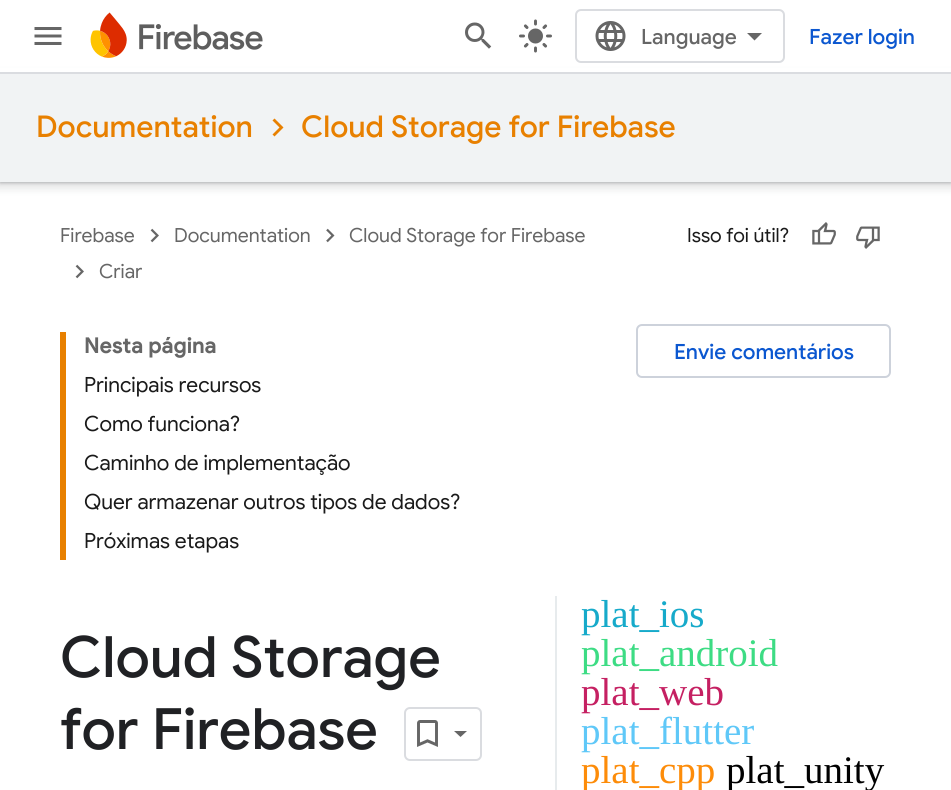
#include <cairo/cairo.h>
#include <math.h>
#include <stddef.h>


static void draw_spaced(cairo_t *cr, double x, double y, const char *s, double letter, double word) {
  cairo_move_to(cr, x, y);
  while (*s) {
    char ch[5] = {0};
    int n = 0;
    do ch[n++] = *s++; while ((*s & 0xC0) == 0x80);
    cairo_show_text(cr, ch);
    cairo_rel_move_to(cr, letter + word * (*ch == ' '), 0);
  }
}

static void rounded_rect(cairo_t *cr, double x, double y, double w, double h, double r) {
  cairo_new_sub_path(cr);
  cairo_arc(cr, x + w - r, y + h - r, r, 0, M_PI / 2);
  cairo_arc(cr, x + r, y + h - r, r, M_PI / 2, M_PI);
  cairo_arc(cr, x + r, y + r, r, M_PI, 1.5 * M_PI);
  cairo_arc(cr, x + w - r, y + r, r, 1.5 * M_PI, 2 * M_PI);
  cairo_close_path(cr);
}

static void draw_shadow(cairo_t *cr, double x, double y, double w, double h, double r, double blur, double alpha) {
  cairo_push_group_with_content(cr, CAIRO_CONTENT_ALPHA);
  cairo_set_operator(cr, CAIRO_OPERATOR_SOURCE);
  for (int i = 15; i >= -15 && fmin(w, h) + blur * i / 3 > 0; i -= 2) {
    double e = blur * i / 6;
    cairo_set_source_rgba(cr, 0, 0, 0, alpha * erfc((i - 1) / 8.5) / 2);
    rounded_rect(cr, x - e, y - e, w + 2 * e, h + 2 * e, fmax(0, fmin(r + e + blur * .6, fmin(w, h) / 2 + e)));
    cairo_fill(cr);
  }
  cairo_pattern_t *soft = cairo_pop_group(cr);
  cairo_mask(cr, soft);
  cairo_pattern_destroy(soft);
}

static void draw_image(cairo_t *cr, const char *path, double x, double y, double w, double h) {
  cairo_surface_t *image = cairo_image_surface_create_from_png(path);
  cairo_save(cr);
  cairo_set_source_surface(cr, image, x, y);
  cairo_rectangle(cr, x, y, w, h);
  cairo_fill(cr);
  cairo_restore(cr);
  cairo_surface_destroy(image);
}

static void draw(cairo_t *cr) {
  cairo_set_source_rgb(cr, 1, 1, 1);
  cairo_paint(cr);
  cairo_set_source_rgb(cr, 60 / 255.0, 64 / 255.0, 67 / 255.0);
  draw_shadow(cr, -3, 74, 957, 114, 0, 4.5, 0.15);
  draw_shadow(cr, 0, 75, 951, 108, 0, 1.5, 0.3);
  cairo_set_source_rgb(cr, 1, 1, 1);
  cairo_rectangle(cr, 0, 68, 951, 4);
  cairo_fill(cr);
  cairo_set_source_rgb(cr, 218 / 255.0, 220 / 255.0, 224 / 255.0);
  cairo_rectangle(cr, 0, 72, 951, 2);
  cairo_fill(cr);
  draw_image(cr, "images/1.png", 34, 27, 28, 18);
  draw_image(cr, "images/2.png", 90, 12, 173, 46);
  draw_image(cr, "images/3.png", 465, 22, 27, 27);
  draw_image(cr, "images/4.png", 519, 19, 33, 34);
  rounded_rect(cr, 576, 10, 208, 52, 5);
  cairo_stroke(cr);
  draw_image(cr, "images/5.png", 595, 21, 31, 30);
  cairo_set_source_rgb(cr, 102 / 255.0, 102 / 255.0, 102 / 255.0);
  cairo_new_path(cr);
  cairo_move_to(cr, 754.5, 40.5);
  cairo_line_to(cr, 747, 33);
  cairo_line_to(cr, 762, 33);
  cairo_close_path(cr);
  cairo_fill(cr);
  cairo_set_source_rgb(cr, 241 / 255.0, 243 / 255.0, 244 / 255.0);
  cairo_rectangle(cr, 0, 74, 951, 108);
  cairo_fill(cr);
  cairo_set_source_rgb(cr, 232 / 255.0, 128 / 255.0, 0);
  cairo_new_path(cr);
  cairo_move_to(cr, 274.5, 118.5);
  cairo_line_to(cr, 283.5, 127.5);
  cairo_line_to(cr, 274.5, 136.5);
  cairo_line_to(cr, 272.5, 134.5);
  cairo_line_to(cr, 279.5, 127.5);
  cairo_line_to(cr, 272.5, 120.5);
  cairo_close_path(cr);
  cairo_fill(cr);
  draw_image(cr, "images/6.png", 150, 228, 9, 15);
  draw_image(cr, "images/7.png", 326, 228, 9, 15);
  draw_image(cr, "images/6.png", 75, 264, 9, 15);
  draw_image(cr, "images/8.png", 812, 222, 24, 23);
  draw_image(cr, "images/9.png", 856, 226, 24, 23);
  cairo_rectangle(cr, 60, 332, 6, 228);
  cairo_fill(cr);
  rounded_rect(cr, 637, 325, 253, 52, 5);
  cairo_set_source_rgb(cr, 205 / 255.0, 210 / 255.0, 219 / 255.0);
  cairo_stroke(cr);
  rounded_rect(cr, 405, 708, 76, 52, 5);
  cairo_set_source_rgb(cr, 218 / 255.0, 220 / 255.0, 224 / 255.0);
  cairo_stroke(cr);
  draw_image(cr, "images/10.png", 417, 720, 21, 27);
  cairo_set_source_rgb(cr, 102 / 255.0, 102 / 255.0, 102 / 255.0);
  cairo_new_path(cr);
  cairo_move_to(cr, 454, 731);
  cairo_line_to(cr, 467, 731);
  cairo_line_to(cr, 460.5, 737);
  cairo_close_path(cr);
  cairo_fill(cr);
  cairo_set_source_rgb(cr, 231 / 255.0, 235 / 255.0, 237 / 255.0);
  cairo_rectangle(cr, 555, 596, 2, 194);
  cairo_fill(cr);
  cairo_select_font_face(cr, "Google Sans Medium", CAIRO_FONT_SLANT_NORMAL, CAIRO_FONT_WEIGHT_NORMAL);
  cairo_set_font_size(cr, 21);
  cairo_set_source_rgb(cr, 102 / 255.0, 102 / 255.0, 102 / 255.0);
  cairo_move_to(cr, 641, 44);
  cairo_show_text(cr, "Language");
  cairo_set_source_rgb(cr, 11 / 255.0, 87 / 255.0, 208 / 255.0);
  cairo_move_to(cr, 809, 44);
  cairo_show_text(cr, "Fazer login");
  cairo_set_font_size(cr, 30);
  cairo_set_source_rgb(cr, 232 / 255.0, 128 / 255.0, 0);
  cairo_move_to(cr, 36, 137);
  cairo_show_text(cr, "Documentation");
  cairo_move_to(cr, 301, 137);
  cairo_show_text(cr, "Cloud Storage for Firebase");
  cairo_select_font_face(cr, "Google Sans", CAIRO_FONT_SLANT_NORMAL, CAIRO_FONT_WEIGHT_NORMAL);
  cairo_set_font_size(cr, 19.5);
  cairo_set_source_rgb(cr, 102 / 255.0, 102 / 255.0, 102 / 255.0);
  cairo_move_to(cr, 60, 242);
  cairo_show_text(cr, "Firebase");
  cairo_move_to(cr, 174, 242);
  cairo_show_text(cr, "Documentation");
  cairo_move_to(cr, 349, 242);
  cairo_show_text(cr, "Cloud Storage for Firebase");
  cairo_move_to(cr, 99, 278);
  cairo_show_text(cr, "Criar");
  cairo_set_source_rgb(cr, 26 / 255.0, 26 / 255.0, 26 / 255.0);
  cairo_move_to(cr, 687, 242);
  cairo_show_text(cr, "Isso foi útil?");
  cairo_select_font_face(cr, "Google Sans", CAIRO_FONT_SLANT_NORMAL, CAIRO_FONT_WEIGHT_BOLD);
  cairo_set_font_size(cr, 21);
  cairo_set_source_rgb(cr, 102 / 255.0, 102 / 255.0, 102 / 255.0);
  draw_spaced(cr, 84, 353, "Nesta página", 0.4, 0);
  cairo_select_font_face(cr, "Google Sans", CAIRO_FONT_SLANT_NORMAL, CAIRO_FONT_WEIGHT_NORMAL);
  cairo_set_source_rgb(cr, 26 / 255.0, 26 / 255.0, 26 / 255.0);
  cairo_move_to(cr, 84, 392);
  cairo_show_text(cr, "Principais recursos");
  cairo_move_to(cr, 84, 431);
  cairo_show_text(cr, "Como funciona?");
  cairo_move_to(cr, 84, 470);
  cairo_show_text(cr, "Caminho de implementação");
  cairo_move_to(cr, 84, 509);
  cairo_show_text(cr, "Quer armazenar outros tipos de dados?");
  cairo_move_to(cr, 84, 548);
  cairo_show_text(cr, "Próximas etapas");
  cairo_select_font_face(cr, "Google Sans Medium", CAIRO_FONT_SLANT_NORMAL, CAIRO_FONT_WEIGHT_NORMAL);
  cairo_set_source_rgb(cr, 11 / 255.0, 87 / 255.0, 208 / 255.0);
  cairo_move_to(cr, 674, 359);
  cairo_show_text(cr, "Envie comentários");
  cairo_set_font_size(cr, 57);
  cairo_set_source_rgb(cr, 32 / 255.0, 33 / 255.0, 36 / 255.0);
  cairo_move_to(cr, 60, 677);
  cairo_show_text(cr, "Cloud Storage");
  cairo_move_to(cr, 60, 749);
  cairo_show_text(cr, "for Firebase");
  cairo_select_font_face(cr, "Liberation Serif", CAIRO_FONT_SLANT_NORMAL, CAIRO_FONT_WEIGHT_NORMAL);
  cairo_set_font_size(cr, 39);
  cairo_set_source_rgb(cr, 22 / 255.0, 170 / 255.0, 202 / 255.0);
  cairo_move_to(cr, 581, 627);
  cairo_show_text(cr, "plat_ios");
  cairo_set_source_rgb(cr, 61 / 255.0, 220 / 255.0, 132 / 255.0);
  cairo_move_to(cr, 581, 666);
  cairo_show_text(cr, "plat_android");
  cairo_set_source_rgb(cr, 197 / 255.0, 32 / 255.0, 98 / 255.0);
  cairo_move_to(cr, 581, 705);
  cairo_show_text(cr, "plat_web");
  cairo_set_source_rgb(cr, 95 / 255.0, 200 / 255.0, 248 / 255.0);
  cairo_move_to(cr, 581, 744);
  cairo_show_text(cr, "plat_flutter");
  cairo_set_source_rgb(cr, 253 / 255.0, 140 / 255.0, 9 / 255.0);
  cairo_move_to(cr, 581, 783);
  cairo_show_text(cr, "plat_cpp");
  cairo_set_source_rgb(cr, 0, 0, 0);
  cairo_move_to(cr, 726, 783);
  cairo_show_text(cr, "plat_unity");
}

int main(void) {
  cairo_surface_t *surface = cairo_image_surface_create(CAIRO_FORMAT_RGB24, 951, 790);
  cairo_t *cr = cairo_create(surface);
  cairo_font_options_t *options = cairo_font_options_create();
  cairo_font_options_set_hint_metrics(options, CAIRO_HINT_METRICS_OFF);
  cairo_font_options_set_hint_style(options, CAIRO_HINT_STYLE_NONE);
  cairo_set_font_options(cr, options);
  cairo_set_miter_limit(cr, 4);
  draw(cr);
  cairo_surface_write_to_png(surface, "out.png");
  cairo_font_options_destroy(options);
  cairo_destroy(cr);
  cairo_surface_destroy(surface);
  return 0;
}
